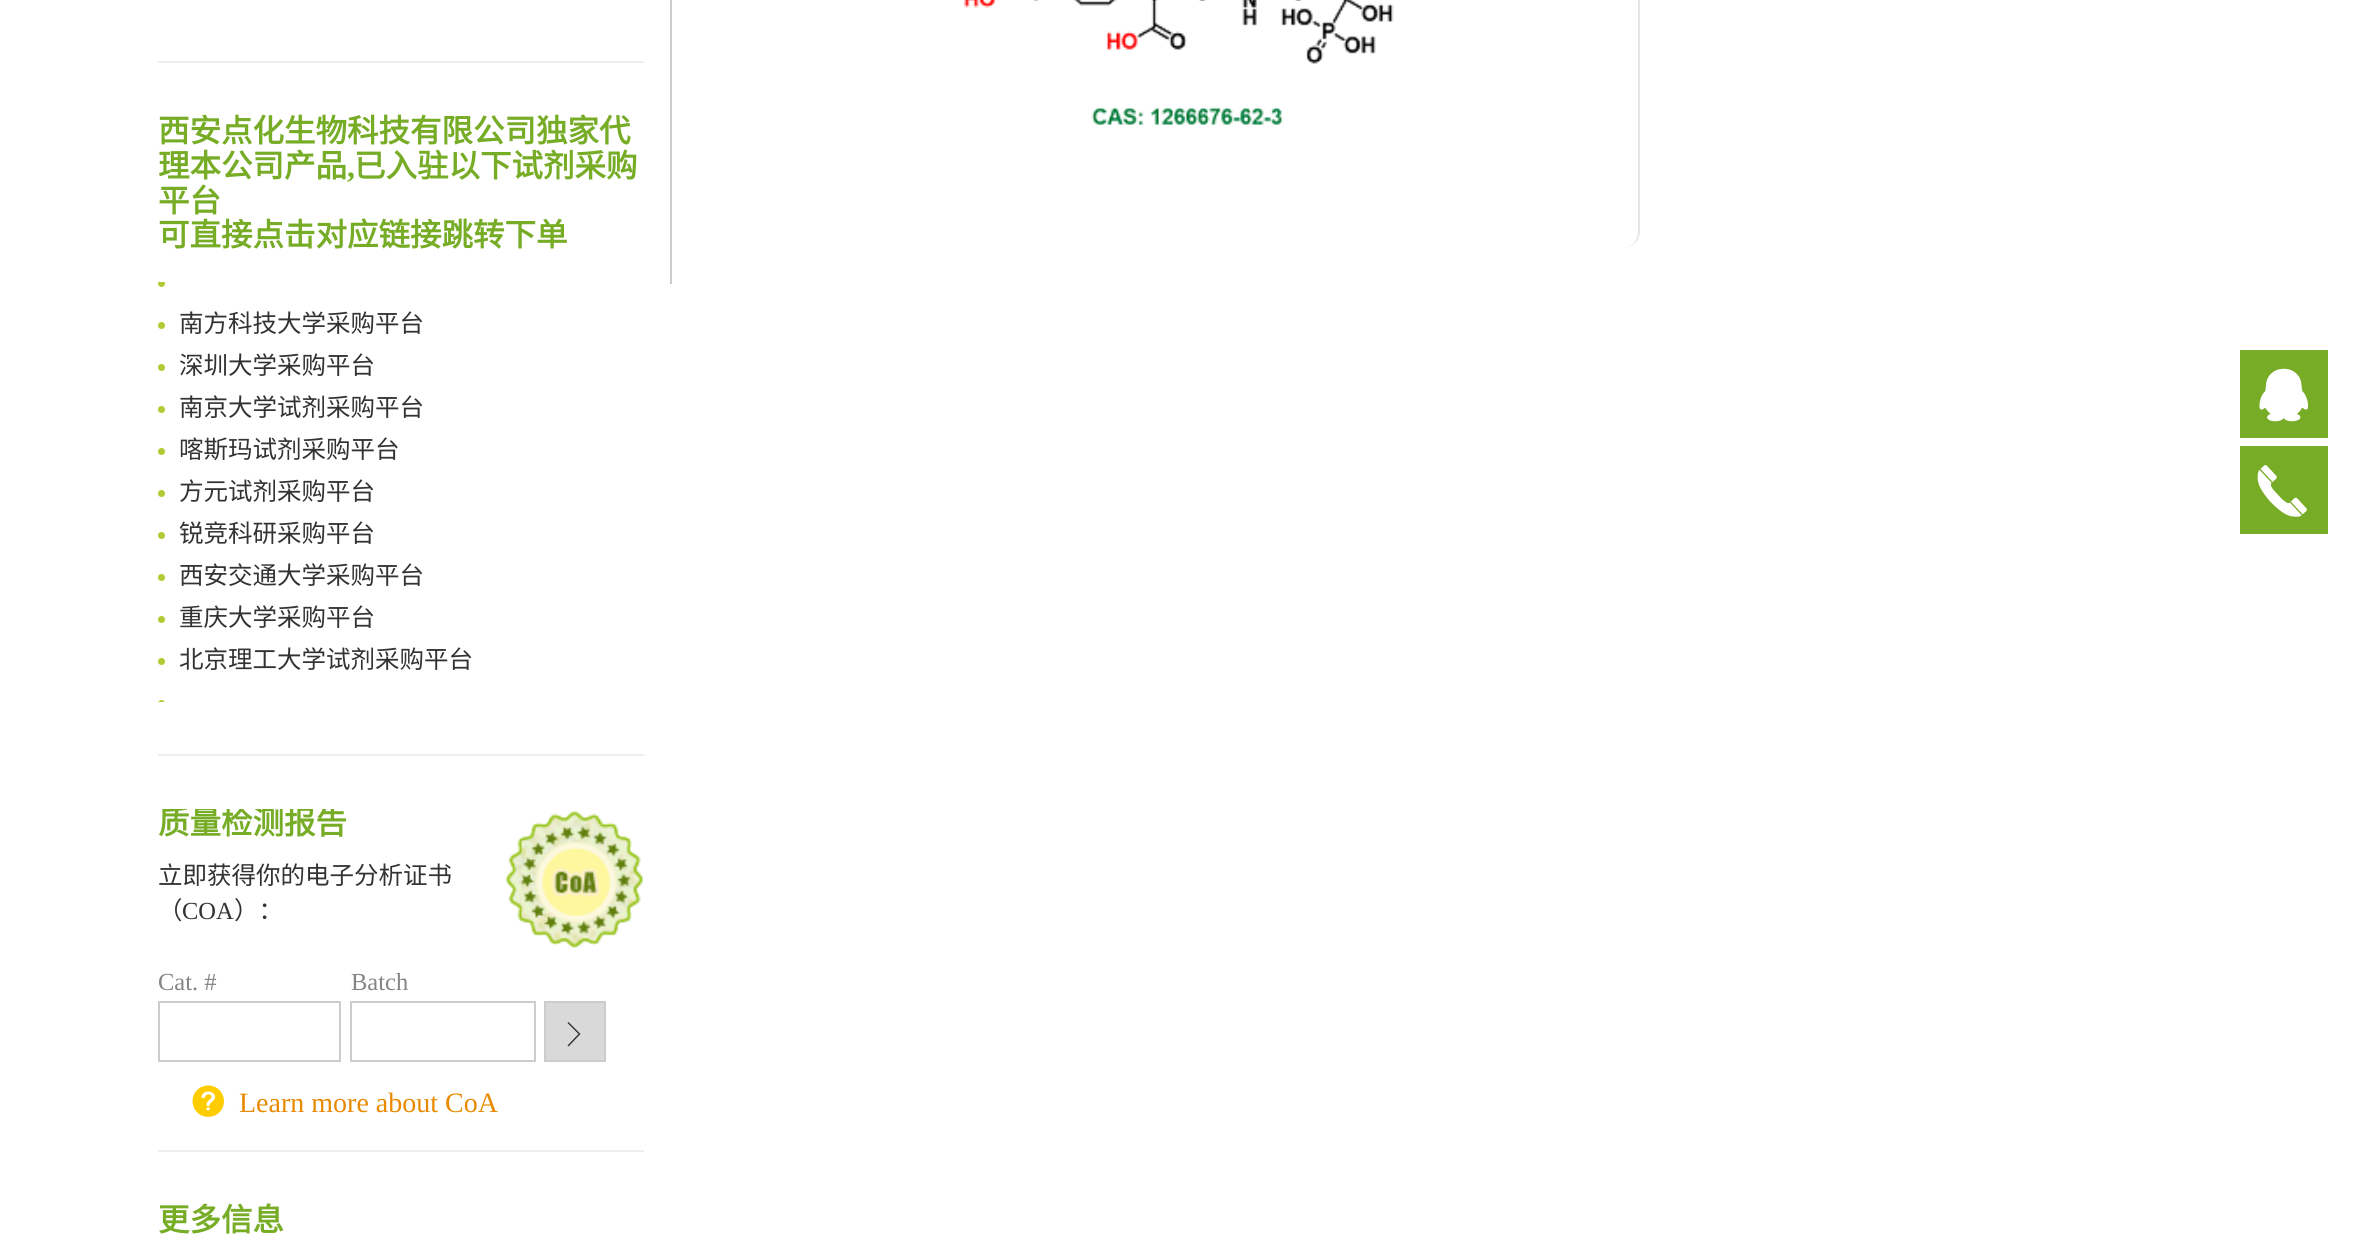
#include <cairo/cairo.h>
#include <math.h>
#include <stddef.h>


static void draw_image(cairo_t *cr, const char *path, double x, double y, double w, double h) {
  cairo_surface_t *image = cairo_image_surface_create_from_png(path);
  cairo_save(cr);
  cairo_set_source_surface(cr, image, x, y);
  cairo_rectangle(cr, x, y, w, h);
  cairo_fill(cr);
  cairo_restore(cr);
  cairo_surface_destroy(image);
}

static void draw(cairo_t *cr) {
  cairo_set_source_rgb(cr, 1, 1, 1);
  cairo_paint(cr);
  cairo_set_source_rgb(cr, 238 / 255.0, 238 / 255.0, 238 / 255.0);
  cairo_rectangle(cr, 158, 61, 486, 2);
  cairo_fill(cr);
  cairo_rectangle(cr, 158, 754, 486, 2);
  cairo_fill(cr);
  cairo_save(cr);
  cairo_rectangle(cr, 158, 282, 486, 420);
  cairo_clip(cr);
  cairo_set_source_rgb(cr, 177 / 255.0, 203 / 255.0, 54 / 255.0);
  cairo_arc(cr, 161.5, 283.5, 3.5, 0, 2 * M_PI);
  cairo_fill(cr);
  cairo_restore(cr);
  cairo_set_source_rgb(cr, 177 / 255.0, 203 / 255.0, 54 / 255.0);
  cairo_arc(cr, 161.5, 325.5, 3.5, 0, 2 * M_PI);
  cairo_fill(cr);
  cairo_arc(cr, 161.5, 367.5, 3.5, 0, 2 * M_PI);
  cairo_fill(cr);
  cairo_arc(cr, 161.5, 409.5, 3.5, 0, 2 * M_PI);
  cairo_fill(cr);
  cairo_arc(cr, 161.5, 451.5, 3.5, 0, 2 * M_PI);
  cairo_fill(cr);
  cairo_arc(cr, 161.5, 493.5, 3.5, 0, 2 * M_PI);
  cairo_fill(cr);
  cairo_arc(cr, 161.5, 535.5, 3.5, 0, 2 * M_PI);
  cairo_fill(cr);
  cairo_arc(cr, 161.5, 577.5, 3.5, 0, 2 * M_PI);
  cairo_fill(cr);
  cairo_arc(cr, 161.5, 619.5, 3.5, 0, 2 * M_PI);
  cairo_fill(cr);
  cairo_arc(cr, 161.5, 661.5, 3.5, 0, 2 * M_PI);
  cairo_fill(cr);
  cairo_new_path(cr);
  cairo_move_to(cr, 161.5, 700);
  cairo_curve_to(cr, 163.5, 700, 165, 701.5, 165, 703.5);
  cairo_line_to(cr, 165, 702);
  cairo_line_to(cr, 158, 702);
  cairo_line_to(cr, 158, 703.5);
  cairo_curve_to(cr, 158, 701.5, 159.5, 700, 161.5, 700);
  cairo_close_path(cr);
  cairo_fill(cr);
  cairo_set_source_rgb(cr, 238 / 255.0, 238 / 255.0, 238 / 255.0);
  cairo_rectangle(cr, 158, 1150, 486, 2);
  cairo_fill(cr);
  draw_image(cr, "images/1.png", 505, 810, 139, 138);
  cairo_rectangle(cr, 159, 1002, 181, 59);
  cairo_set_source_rgb(cr, 204 / 255.0, 204 / 255.0, 204 / 255.0);
  cairo_stroke(cr);
  cairo_rectangle(cr, 351, 1002, 184, 59);
  cairo_stroke(cr);
  cairo_set_source_rgb(cr, 217 / 255.0, 217 / 255.0, 217 / 255.0);
  cairo_rectangle(cr, 545, 1002, 60, 59);
  cairo_fill_preserve(cr);
  cairo_set_source_rgb(cr, 204 / 255.0, 204 / 255.0, 204 / 255.0);
  cairo_stroke(cr);
  cairo_set_source_rgb(cr, 51 / 255.0, 51 / 255.0, 51 / 255.0);
  cairo_new_path(cr);
  cairo_move_to(cr, 567.5, 1045.5);
  cairo_line_to(cr, 568.5, 1046.5);
  cairo_line_to(cr, 580.5, 1034);
  cairo_line_to(cr, 568.5, 1022);
  cairo_line_to(cr, 567.5, 1023);
  cairo_line_to(cr, 578.5, 1034);
  cairo_close_path(cr);
  cairo_fill(cr);
  draw_image(cr, "images/2.png", 192, 1085, 32, 32);
  cairo_set_source_rgb(cr, 204 / 255.0, 204 / 255.0, 204 / 255.0);
  cairo_rectangle(cr, 670, 0, 2, 284);
  cairo_fill(cr);
  cairo_set_source_rgb(cr, 229 / 255.0, 229 / 255.0, 229 / 255.0);
  cairo_set_fill_rule(cr, CAIRO_FILL_RULE_EVEN_ODD);
  cairo_new_path(cr);
  cairo_move_to(cr, 786, -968);
  cairo_line_to(cr, 1622, -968);
  cairo_curve_to(cr, 1632, -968, 1640, -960, 1640, -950);
  cairo_line_to(cr, 1640, 231);
  cairo_curve_to(cr, 1640, 241, 1632, 248, 1622, 248);
  cairo_line_to(cr, 786, 248);
  cairo_curve_to(cr, 776, 248, 768, 241, 768, 231);
  cairo_line_to(cr, 768, -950);
  cairo_curve_to(cr, 768, -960, 776, -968, 786, -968);
  cairo_close_path(cr);
  cairo_move_to(cr, 786, -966);
  cairo_line_to(cr, 1622, -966);
  cairo_curve_to(cr, 1631, -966, 1638, -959, 1638, -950);
  cairo_line_to(cr, 1638, 231);
  cairo_curve_to(cr, 1638, 241, 1631, 248, 1622, 248);
  cairo_line_to(cr, 786, 248);
  cairo_curve_to(cr, 776, 248, 768, 241, 768, 231);
  cairo_line_to(cr, 768, -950);
  cairo_curve_to(cr, 768, -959, 776, -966, 786, -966);
  cairo_close_path(cr);
  cairo_fill(cr);
  draw_image(cr, "images/3.png", 963, 0, 431, 126);
  cairo_set_source_rgb(cr, 119 / 255.0, 172 / 255.0, 38 / 255.0);
  cairo_rectangle(cr, 2240, 350, 88, 88);
  cairo_fill(cr);
  draw_image(cr, "images/4.png", 2259, 368, 50, 54);
  cairo_rectangle(cr, 2240, 446, 88, 88);
  cairo_fill(cr);
  draw_image(cr, "images/5.png", 2257, 465, 50, 52);
  cairo_select_font_face(cr, "Noto Sans CJK SC", CAIRO_FONT_SLANT_NORMAL, CAIRO_FONT_WEIGHT_BOLD);
  cairo_set_font_size(cr, 31.5);
  cairo_move_to(cr, 158, 142);
  cairo_show_text(cr, "西安点化生物科技有限公司独家代");
  cairo_move_to(cr, 158, 177);
  cairo_show_text(cr, "理本公司产品");
  cairo_select_font_face(cr, "Liberation Serif", CAIRO_FONT_SLANT_NORMAL, CAIRO_FONT_WEIGHT_BOLD);
  cairo_move_to(cr, 347, 177);
  cairo_show_text(cr, ",");
  cairo_select_font_face(cr, "Noto Sans CJK SC", CAIRO_FONT_SLANT_NORMAL, CAIRO_FONT_WEIGHT_BOLD);
  cairo_move_to(cr, 354, 177);
  cairo_show_text(cr, "已入驻以下试剂采购");
  cairo_move_to(cr, 158, 212);
  cairo_show_text(cr, "平台");
  cairo_move_to(cr, 158, 246);
  cairo_show_text(cr, "可直接点击对应链接跳转下单");
  cairo_select_font_face(cr, "Noto Sans CJK SC", CAIRO_FONT_SLANT_NORMAL, CAIRO_FONT_WEIGHT_NORMAL);
  cairo_set_font_size(cr, 24.5);
  cairo_set_source_rgb(cr, 51 / 255.0, 51 / 255.0, 51 / 255.0);
  cairo_move_to(cr, 179, 332);
  cairo_show_text(cr, "南方科技大学采购平台");
  cairo_move_to(cr, 179, 374);
  cairo_show_text(cr, "深圳大学采购平台");
  cairo_move_to(cr, 179, 416);
  cairo_show_text(cr, "南京大学试剂采购平台");
  cairo_move_to(cr, 179, 458);
  cairo_show_text(cr, "喀斯玛试剂采购平台");
  cairo_move_to(cr, 179, 500);
  cairo_show_text(cr, "方元试剂采购平台");
  cairo_move_to(cr, 179, 542);
  cairo_show_text(cr, "锐竞科研采购平台");
  cairo_move_to(cr, 179, 584);
  cairo_show_text(cr, "西安交通大学采购平台");
  cairo_move_to(cr, 179, 626);
  cairo_show_text(cr, "重庆大学采购平台");
  cairo_move_to(cr, 179, 668);
  cairo_show_text(cr, "北京理工大学试剂采购平台");
  cairo_save(cr);
  cairo_set_fill_rule(cr, CAIRO_FILL_RULE_WINDING);
  cairo_rectangle(cr, 158, 809, 486, 140);
  cairo_clip(cr);
  cairo_select_font_face(cr, "Noto Sans CJK SC", CAIRO_FONT_SLANT_NORMAL, CAIRO_FONT_WEIGHT_BOLD);
  cairo_set_font_size(cr, 31.5);
  cairo_set_source_rgb(cr, 119 / 255.0, 172 / 255.0, 38 / 255.0);
  cairo_move_to(cr, 158, 834);
  cairo_show_text(cr, "质量检测报告");
  cairo_restore(cr);
  cairo_move_to(cr, 158, 884);
  cairo_show_text(cr, "立即获得你的电子分析证书");
  cairo_move_to(cr, 158, 919);
  cairo_show_text(cr, "（");
  cairo_select_font_face(cr, "Liberation Serif", CAIRO_FONT_SLANT_NORMAL, CAIRO_FONT_WEIGHT_NORMAL);
  cairo_move_to(cr, 182, 919);
  cairo_show_text(cr, "COA");
  cairo_select_font_face(cr, "Noto Sans CJK SC", CAIRO_FONT_SLANT_NORMAL, CAIRO_FONT_WEIGHT_NORMAL);
  cairo_move_to(cr, 234, 919);
  cairo_show_text(cr, "）：");
  cairo_select_font_face(cr, "Liberation Serif", CAIRO_FONT_SLANT_NORMAL, CAIRO_FONT_WEIGHT_NORMAL);
  cairo_set_source_rgb(cr, 133 / 255.0, 133 / 255.0, 133 / 255.0);
  cairo_move_to(cr, 158, 990);
  cairo_show_text(cr, "Cat. #");
  cairo_move_to(cr, 351, 990);
  cairo_show_text(cr, "Batch");
  cairo_set_font_size(cr, 28);
  cairo_set_source_rgb(cr, 233 / 255.0, 137 / 255.0, 0);
  cairo_move_to(cr, 239, 1112);
  cairo_show_text(cr, "Learn more about CoA");
  cairo_select_font_face(cr, "Noto Sans CJK SC", CAIRO_FONT_SLANT_NORMAL, CAIRO_FONT_WEIGHT_BOLD);
  cairo_set_font_size(cr, 31.5);
  cairo_set_source_rgb(cr, 119 / 255.0, 172 / 255.0, 38 / 255.0);
  cairo_move_to(cr, 158, 1231);
  cairo_show_text(cr, "更多信息");
}

int main(void) {
  cairo_surface_t *surface = cairo_image_surface_create(CAIRO_FORMAT_RGB24, 2361, 1241);
  cairo_t *cr = cairo_create(surface);
  cairo_font_options_t *options = cairo_font_options_create();
  cairo_font_options_set_hint_metrics(options, CAIRO_HINT_METRICS_OFF);
  cairo_font_options_set_hint_style(options, CAIRO_HINT_STYLE_NONE);
  cairo_set_font_options(cr, options);
  cairo_set_miter_limit(cr, 4);
  draw(cr);
  cairo_surface_write_to_png(surface, "out.png");
  cairo_font_options_destroy(options);
  cairo_destroy(cr);
  cairo_surface_destroy(surface);
  return 0;
}
